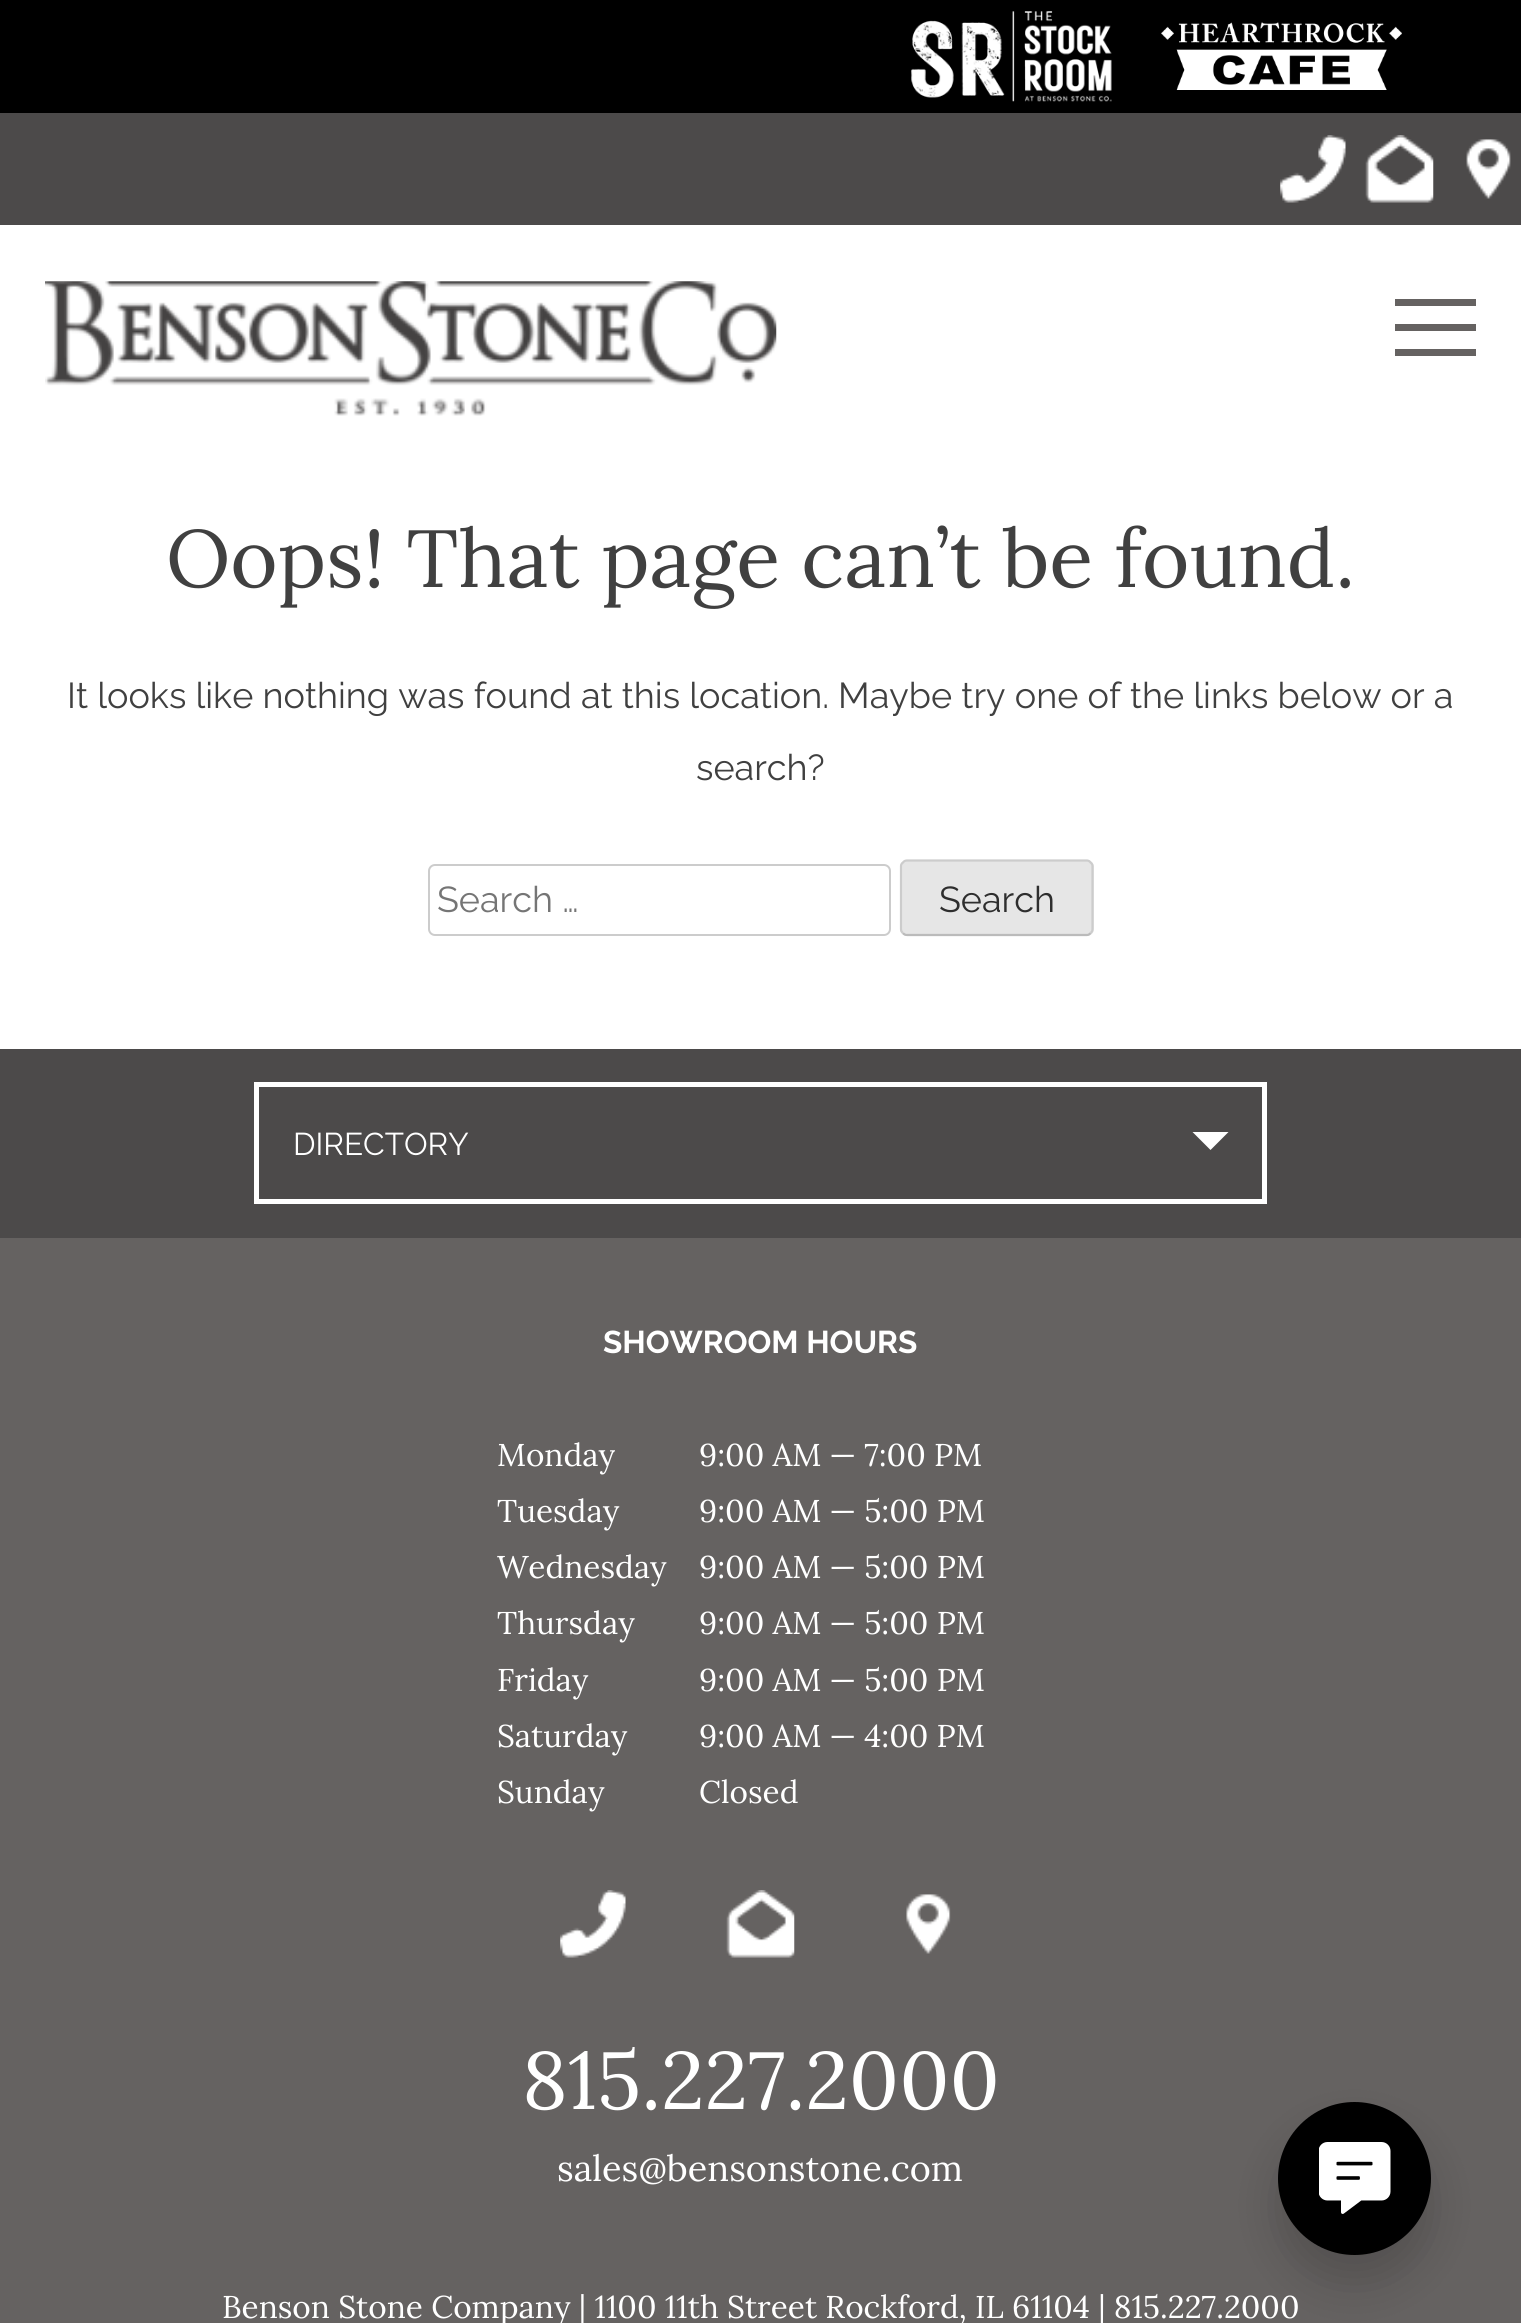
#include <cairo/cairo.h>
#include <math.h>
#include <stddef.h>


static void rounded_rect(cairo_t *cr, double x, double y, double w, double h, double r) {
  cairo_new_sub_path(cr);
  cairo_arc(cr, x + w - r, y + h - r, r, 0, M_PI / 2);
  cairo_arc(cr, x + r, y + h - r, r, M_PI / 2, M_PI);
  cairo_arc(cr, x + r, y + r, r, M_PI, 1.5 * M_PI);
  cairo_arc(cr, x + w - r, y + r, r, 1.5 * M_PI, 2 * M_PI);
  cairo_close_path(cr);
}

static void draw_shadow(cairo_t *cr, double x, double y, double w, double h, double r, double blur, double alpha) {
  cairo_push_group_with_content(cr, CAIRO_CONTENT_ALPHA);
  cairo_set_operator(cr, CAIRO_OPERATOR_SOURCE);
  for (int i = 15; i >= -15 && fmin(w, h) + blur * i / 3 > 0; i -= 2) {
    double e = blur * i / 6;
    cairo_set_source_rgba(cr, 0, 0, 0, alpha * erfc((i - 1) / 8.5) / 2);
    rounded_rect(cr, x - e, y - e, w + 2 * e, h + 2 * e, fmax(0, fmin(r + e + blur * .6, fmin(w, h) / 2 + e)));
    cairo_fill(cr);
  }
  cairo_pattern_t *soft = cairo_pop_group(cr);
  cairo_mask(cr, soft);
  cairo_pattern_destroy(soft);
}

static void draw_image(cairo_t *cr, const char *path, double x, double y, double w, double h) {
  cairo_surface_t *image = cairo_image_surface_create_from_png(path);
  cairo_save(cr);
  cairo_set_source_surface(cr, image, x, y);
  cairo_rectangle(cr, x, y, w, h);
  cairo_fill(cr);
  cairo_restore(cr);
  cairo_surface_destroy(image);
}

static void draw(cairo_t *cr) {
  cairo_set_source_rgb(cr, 1, 1, 1);
  cairo_paint(cr);
  cairo_set_source_rgb(cr, 0, 0, 0);
  cairo_rectangle(cr, 0, 0, 1521, 113);
  cairo_fill(cr);
  draw_image(cr, "images/1.png", 911, 11, 201, 91);
  draw_image(cr, "images/2.png", 1161, 22, 241, 68);
  cairo_set_source_rgb(cr, 76 / 255.0, 74 / 255.0, 74 / 255.0);
  cairo_rectangle(cr, 0, 113, 1521, 112);
  cairo_fill(cr);
  draw_image(cr, "images/3.png", 1280, 135, 66, 68);
  draw_image(cr, "images/4.png", 1365, 135, 69, 68);
  draw_image(cr, "images/5.png", 1466, 139, 45, 60);
  draw_image(cr, "images/6.png", 45, 281, 732, 135);
  cairo_set_source_rgb(cr, 101 / 255.0, 98 / 255.0, 97 / 255.0);
  cairo_rectangle(cr, 1395, 299, 81, 7);
  cairo_fill(cr);
  cairo_rectangle(cr, 1395, 324, 81, 7);
  cairo_fill(cr);
  cairo_rectangle(cr, 1395, 349, 81, 7);
  cairo_fill(cr);
  rounded_rect(cr, 429, 865, 461, 70, 6);
  cairo_set_source_rgb(cr, 204 / 255.0, 204 / 255.0, 204 / 255.0);
  cairo_stroke(cr);
  cairo_set_source_rgb(cr, 230 / 255.0, 230 / 255.0, 230 / 255.0);
  rounded_rect(cr, 900, 860, 194, 76, 7);
  cairo_fill(cr);
  cairo_new_path(cr);
  cairo_move_to(cr, 1090.5, 933);
  cairo_curve_to(cr, 1089.5, 934.5, 1088, 935, 1087, 935);
  cairo_line_to(cr, 907, 935);
  cairo_curve_to(cr, 905.5, 935, 904, 934.5, 903, 933);
  cairo_set_source_rgb(cr, 187 / 255.0, 187 / 255.0, 187 / 255.0);
  cairo_set_line_width(cr, 2.2);
  cairo_stroke(cr);
  cairo_new_path(cr);
  cairo_move_to(cr, 903, 933);
  cairo_curve_to(cr, 901.5, 932, 901, 930.5, 901, 929);
  cairo_line_to(cr, 901, 866);
  cairo_curve_to(cr, 901, 865, 901.5, 863.5, 903, 862.5);
  cairo_curve_to(cr, 904, 861, 905.5, 860.5, 907, 860.5);
  cairo_line_to(cr, 1087, 860.5);
  cairo_curve_to(cr, 1088, 860.5, 1089.5, 861, 1090.5, 862.5);
  cairo_curve_to(cr, 1092, 863.5, 1092.5, 865, 1092.5, 866);
  cairo_line_to(cr, 1092.5, 929);
  cairo_curve_to(cr, 1092.5, 930.5, 1092, 932, 1090.5, 933);
  cairo_set_source_rgb(cr, 204 / 255.0, 204 / 255.0, 204 / 255.0);
  cairo_stroke(cr);
  cairo_set_source_rgb(cr, 76 / 255.0, 74 / 255.0, 74 / 255.0);
  cairo_rectangle(cr, 0, 1049, 1521, 189);
  cairo_fill(cr);
  cairo_rectangle(cr, 256.5, 1084.5, 1008, 117);
  cairo_set_source_rgb(cr, 1, 1, 1);
  cairo_set_line_width(cr, 5);
  cairo_stroke(cr);
  cairo_new_path(cr);
  cairo_move_to(cr, 1192.5, 1132);
  cairo_line_to(cr, 1228.5, 1132);
  cairo_line_to(cr, 1210.5, 1150);
  cairo_close_path(cr);
  cairo_fill(cr);
  cairo_set_source_rgb(cr, 101 / 255.0, 98 / 255.0, 97 / 255.0);
  cairo_rectangle(cr, 0, 1238, 1521, 1085);
  cairo_fill(cr);
  draw_image(cr, "images/7.png", 560, 1890, 66, 68);
  draw_image(cr, "images/8.png", 726, 1890, 69, 68);
  draw_image(cr, "images/9.png", 906, 1894, 45, 60);
  cairo_set_source_rgb(cr, 0, 0, 0);
  draw_shadow(cr, 1278, 2129, 153, 153, 76.5, 21.5, 0.18);
  cairo_set_source_rgb(cr, 0, 0, 0);
  cairo_arc(cr, 1354.5, 2178.5, 76.5, 0, 2 * M_PI);
  cairo_fill(cr);
  draw_image(cr, "images/10.png", 1319, 2142, 72, 72);
  cairo_select_font_face(cr, "Lora", CAIRO_FONT_SLANT_NORMAL, CAIRO_FONT_WEIGHT_NORMAL);
  cairo_set_font_size(cr, 81);
  cairo_set_source_rgb(cr, 64 / 255.0, 64 / 255.0, 64 / 255.0);
  cairo_move_to(cr, 166, 587);
  cairo_show_text(cr, "Oops! That page can’t be found.");
  cairo_select_font_face(cr, "Raleway Thin", CAIRO_FONT_SLANT_NORMAL, CAIRO_FONT_WEIGHT_NORMAL);
  cairo_set_font_size(cr, 36);
  cairo_move_to(cr, 67, 708);
  cairo_show_text(cr, "It looks like nothing was found at this location. Maybe try one of the links below or a");
  cairo_move_to(cr, 696, 780);
  cairo_show_text(cr, "search?");
  cairo_set_source_rgb(cr, 117 / 255.0, 117 / 255.0, 117 / 255.0);
  cairo_move_to(cr, 437, 912);
  cairo_show_text(cr, "Search …");
  cairo_set_source_rgb(cr, 46 / 255.0, 46 / 255.0, 46 / 255.0);
  cairo_move_to(cr, 939, 912);
  cairo_show_text(cr, "Search");
  cairo_set_font_size(cr, 31.5);
  cairo_set_source_rgb(cr, 1, 1, 1);
  cairo_move_to(cr, 293, 1155);
  cairo_show_text(cr, "DIRECTORY");
  cairo_select_font_face(cr, "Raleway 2 Thin", CAIRO_FONT_SLANT_NORMAL, CAIRO_FONT_WEIGHT_NORMAL);
  cairo_move_to(cr, 603, 1353);
  cairo_show_text(cr, "SHOWROOM HOURS");
  cairo_select_font_face(cr, "Lora", CAIRO_FONT_SLANT_NORMAL, CAIRO_FONT_WEIGHT_NORMAL);
  cairo_move_to(cr, 497, 1466);
  cairo_show_text(cr, "Monday");
  cairo_move_to(cr, 699, 1466);
  cairo_show_text(cr, "9:00 AM — 7:00 PM");
  cairo_move_to(cr, 497, 1522);
  cairo_show_text(cr, "Tuesday");
  cairo_move_to(cr, 699, 1522);
  cairo_show_text(cr, "9:00 AM — 5:00 PM");
  cairo_move_to(cr, 497, 1578);
  cairo_show_text(cr, "Wednesday");
  cairo_move_to(cr, 699, 1578);
  cairo_show_text(cr, "9:00 AM — 5:00 PM");
  cairo_move_to(cr, 497, 1634);
  cairo_show_text(cr, "Thursday");
  cairo_move_to(cr, 699, 1634);
  cairo_show_text(cr, "9:00 AM — 5:00 PM");
  cairo_move_to(cr, 497, 1691);
  cairo_show_text(cr, "Friday");
  cairo_move_to(cr, 699, 1691);
  cairo_show_text(cr, "9:00 AM — 5:00 PM");
  cairo_move_to(cr, 497, 1747);
  cairo_show_text(cr, "Saturday");
  cairo_move_to(cr, 699, 1747);
  cairo_show_text(cr, "9:00 AM — 4:00 PM");
  cairo_move_to(cr, 497, 1803);
  cairo_show_text(cr, "Sunday");
  cairo_move_to(cr, 699, 1803);
  cairo_show_text(cr, "Closed");
  cairo_set_font_size(cr, 81);
  cairo_move_to(cr, 522, 2109);
  cairo_show_text(cr, "815.227.2000");
  cairo_set_font_size(cr, 36);
  cairo_move_to(cr, 557, 2181);
  cairo_show_text(cr, "sales@bensonstone.com");
  cairo_set_font_size(cr, 31.5);
  cairo_move_to(cr, 222, 2318);
  cairo_show_text(cr, "Benson Stone Company | 1100 11th Street Rockford, IL 61104 | 815.227.2000");
}

int main(void) {
  cairo_surface_t *surface = cairo_image_surface_create(CAIRO_FORMAT_RGB24, 1521, 2323);
  cairo_t *cr = cairo_create(surface);
  cairo_font_options_t *options = cairo_font_options_create();
  cairo_font_options_set_hint_metrics(options, CAIRO_HINT_METRICS_OFF);
  cairo_font_options_set_hint_style(options, CAIRO_HINT_STYLE_NONE);
  cairo_set_font_options(cr, options);
  cairo_set_miter_limit(cr, 4);
  draw(cr);
  cairo_surface_write_to_png(surface, "out.png");
  cairo_font_options_destroy(options);
  cairo_destroy(cr);
  cairo_surface_destroy(surface);
  return 0;
}
